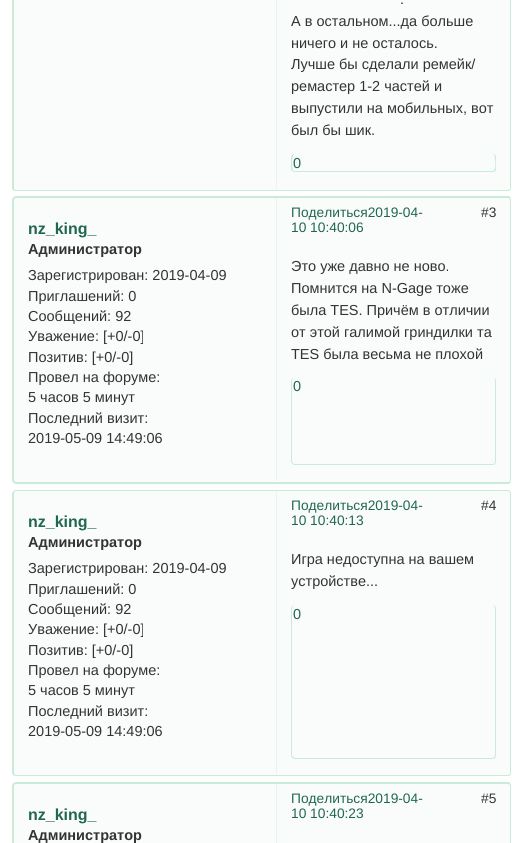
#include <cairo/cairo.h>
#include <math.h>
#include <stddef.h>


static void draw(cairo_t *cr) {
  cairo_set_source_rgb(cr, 1, 1, 1);
  cairo_paint(cr);
  cairo_set_source_rgb(cr, 250 / 255.0, 252 / 255.0, 251 / 255.0);
  cairo_new_path(cr);
  cairo_move_to(cr, 13, -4);
  cairo_line_to(cr, 511, -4);
  cairo_line_to(cr, 511, 187);
  cairo_curve_to(cr, 511, 189, 509, 191, 507, 191);
  cairo_line_to(cr, 17, 191);
  cairo_curve_to(cr, 15, 191, 13, 189, 13, 187);
  cairo_close_path(cr);
  cairo_fill(cr);
  cairo_set_source_rgb(cr, 201 / 255.0, 235 / 255.0, 215 / 255.0);
  cairo_set_fill_rule(cr, CAIRO_FILL_RULE_EVEN_ODD);
  cairo_new_path(cr);
  cairo_move_to(cr, 12, -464);
  cairo_line_to(cr, 511, -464);
  cairo_line_to(cr, 511, 188);
  cairo_curve_to(cr, 511, 190, 510, 191, 508, 191);
  cairo_line_to(cr, 16, 191);
  cairo_curve_to(cr, 14, 191, 12, 190, 12, 188);
  cairo_close_path(cr);
  cairo_move_to(cr, 14, -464);
  cairo_line_to(cr, 510, -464);
  cairo_line_to(cr, 510, 188);
  cairo_curve_to(cr, 510, 189, 509, 190, 508, 190);
  cairo_line_to(cr, 16, 190);
  cairo_curve_to(cr, 15, 190, 14, 189, 14, 188);
  cairo_close_path(cr);
  cairo_fill(cr);
  cairo_set_source_rgb(cr, 250 / 255.0, 252 / 255.0, 251 / 255.0);
  cairo_rectangle(cr, 509, 188, 1, 1);
  cairo_fill(cr);
  cairo_set_source_rgb(cr, 232 / 255.0, 245 / 255.0, 237 / 255.0);
  cairo_rectangle(cr, 276, 0, 1, 189);
  cairo_fill(cr);
  cairo_set_source_rgb(cr, 201 / 255.0, 235 / 255.0, 215 / 255.0);
  cairo_new_path(cr);
  cairo_move_to(cr, 295, 154);
  cairo_line_to(cr, 492, 154);
  cairo_curve_to(cr, 495, 154, 496, 155, 496, 158);
  cairo_line_to(cr, 496, 169);
  cairo_curve_to(cr, 496, 171, 495, 172, 492, 172);
  cairo_line_to(cr, 295, 172);
  cairo_curve_to(cr, 293, 172, 291, 171, 291, 169);
  cairo_line_to(cr, 291, 158);
  cairo_curve_to(cr, 291, 155, 293, 154, 295, 154);
  cairo_close_path(cr);
  cairo_move_to(cr, 295, 154);
  cairo_line_to(cr, 492, 154);
  cairo_curve_to(cr, 495, 154, 495, 158, 495, 159);
  cairo_curve_to(cr, 495, 162, 497, 171, 492, 171);
  cairo_line_to(cr, 295, 171);
  cairo_line_to(cr, 293, 171);
  cairo_curve_to(cr, 292, 169, 291, 154, 295, 154);
  cairo_close_path(cr);
  cairo_fill(cr);
  cairo_set_source_rgb(cr, 250 / 255.0, 252 / 255.0, 251 / 255.0);
  cairo_new_path(cr);
  cairo_move_to(cr, 17, 196);
  cairo_line_to(cr, 507, 196);
  cairo_curve_to(cr, 509, 196, 511, 198, 511, 200);
  cairo_line_to(cr, 511, 241);
  cairo_line_to(cr, 13, 241);
  cairo_line_to(cr, 13, 200);
  cairo_curve_to(cr, 13, 198, 15, 196, 17, 196);
  cairo_close_path(cr);
  cairo_fill(cr);
  cairo_set_source_rgb(cr, 201 / 255.0, 235 / 255.0, 215 / 255.0);
  cairo_new_path(cr);
  cairo_move_to(cr, 16, 196);
  cairo_line_to(cr, 508, 196);
  cairo_curve_to(cr, 510, 196, 511, 198, 511, 200);
  cairo_line_to(cr, 511, 241);
  cairo_line_to(cr, 12, 241);
  cairo_line_to(cr, 12, 200);
  cairo_curve_to(cr, 12, 198, 14, 196, 16, 196);
  cairo_close_path(cr);
  cairo_move_to(cr, 16, 198);
  cairo_line_to(cr, 508, 198);
  cairo_curve_to(cr, 509, 198, 510, 199, 510, 200);
  cairo_line_to(cr, 510, 241);
  cairo_line_to(cr, 14, 241);
  cairo_line_to(cr, 14, 200);
  cairo_curve_to(cr, 14, 199, 15, 198, 16, 198);
  cairo_close_path(cr);
  cairo_fill(cr);
  cairo_set_source_rgb(cr, 232 / 255.0, 245 / 255.0, 237 / 255.0);
  cairo_rectangle(cr, 276, 198, 1, 43);
  cairo_fill(cr);
  cairo_set_source_rgb(cr, 250 / 255.0, 252 / 255.0, 251 / 255.0);
  cairo_new_path(cr);
  cairo_move_to(cr, 13, 240);
  cairo_line_to(cr, 511, 240);
  cairo_line_to(cr, 511, 480);
  cairo_curve_to(cr, 511, 482, 509, 484, 507, 484);
  cairo_line_to(cr, 17, 484);
  cairo_curve_to(cr, 15, 484, 13, 482, 13, 480);
  cairo_close_path(cr);
  cairo_fill(cr);
  cairo_set_source_rgb(cr, 201 / 255.0, 235 / 255.0, 215 / 255.0);
  cairo_new_path(cr);
  cairo_move_to(cr, 12, 240);
  cairo_line_to(cr, 511, 240);
  cairo_line_to(cr, 511, 480);
  cairo_curve_to(cr, 511, 482, 510, 484, 508, 484);
  cairo_line_to(cr, 16, 484);
  cairo_curve_to(cr, 14, 484, 12, 482, 12, 480);
  cairo_close_path(cr);
  cairo_move_to(cr, 14, 240);
  cairo_line_to(cr, 510, 240);
  cairo_line_to(cr, 510, 480);
  cairo_curve_to(cr, 510, 481, 509, 482, 508, 482);
  cairo_line_to(cr, 16, 482);
  cairo_curve_to(cr, 15, 482, 14, 481, 14, 480);
  cairo_close_path(cr);
  cairo_fill(cr);
  cairo_set_source_rgb(cr, 250 / 255.0, 252 / 255.0, 251 / 255.0);
  cairo_rectangle(cr, 509, 480, 1, 1);
  cairo_fill(cr);
  cairo_set_source_rgb(cr, 232 / 255.0, 245 / 255.0, 237 / 255.0);
  cairo_rectangle(cr, 276, 240, 1, 241);
  cairo_fill(cr);
  cairo_set_source_rgb(cr, 201 / 255.0, 235 / 255.0, 215 / 255.0);
  cairo_new_path(cr);
  cairo_move_to(cr, 295, 378);
  cairo_line_to(cr, 492, 378);
  cairo_curve_to(cr, 495, 378, 496, 379, 496, 381);
  cairo_line_to(cr, 496, 461);
  cairo_curve_to(cr, 496, 463, 495, 465, 492, 465);
  cairo_line_to(cr, 295, 465);
  cairo_curve_to(cr, 293, 465, 291, 463, 291, 461);
  cairo_line_to(cr, 291, 381);
  cairo_curve_to(cr, 291, 379, 293, 378, 295, 378);
  cairo_close_path(cr);
  cairo_move_to(cr, 295, 378);
  cairo_line_to(cr, 492, 378);
  cairo_curve_to(cr, 494, 378, 495, 379, 495, 381);
  cairo_line_to(cr, 495, 461);
  cairo_curve_to(cr, 495, 463, 494, 464, 492, 464);
  cairo_line_to(cr, 295, 464);
  cairo_curve_to(cr, 294, 464, 292, 463, 292, 461);
  cairo_line_to(cr, 292, 381);
  cairo_curve_to(cr, 292, 379, 294, 378, 295, 378);
  cairo_close_path(cr);
  cairo_fill(cr);
  cairo_set_source_rgb(cr, 250 / 255.0, 252 / 255.0, 251 / 255.0);
  cairo_new_path(cr);
  cairo_move_to(cr, 17, 490);
  cairo_line_to(cr, 507, 490);
  cairo_curve_to(cr, 509, 490, 511, 492, 511, 494);
  cairo_line_to(cr, 511, 535);
  cairo_line_to(cr, 13, 535);
  cairo_line_to(cr, 13, 494);
  cairo_curve_to(cr, 13, 492, 15, 490, 17, 490);
  cairo_close_path(cr);
  cairo_fill(cr);
  cairo_set_source_rgb(cr, 201 / 255.0, 235 / 255.0, 215 / 255.0);
  cairo_new_path(cr);
  cairo_move_to(cr, 16, 490);
  cairo_line_to(cr, 508, 490);
  cairo_curve_to(cr, 510, 490, 511, 492, 511, 494);
  cairo_line_to(cr, 511, 535);
  cairo_line_to(cr, 12, 535);
  cairo_line_to(cr, 12, 494);
  cairo_curve_to(cr, 12, 492, 14, 490, 16, 490);
  cairo_close_path(cr);
  cairo_move_to(cr, 16, 491);
  cairo_line_to(cr, 508, 491);
  cairo_curve_to(cr, 509, 491, 510, 492, 510, 494);
  cairo_line_to(cr, 510, 535);
  cairo_line_to(cr, 14, 535);
  cairo_line_to(cr, 14, 494);
  cairo_curve_to(cr, 14, 492, 15, 491, 16, 491);
  cairo_close_path(cr);
  cairo_fill(cr);
  cairo_set_source_rgb(cr, 232 / 255.0, 245 / 255.0, 237 / 255.0);
  cairo_rectangle(cr, 276, 491, 1, 44);
  cairo_fill(cr);
  cairo_set_source_rgb(cr, 250 / 255.0, 252 / 255.0, 251 / 255.0);
  cairo_new_path(cr);
  cairo_move_to(cr, 13, 534);
  cairo_line_to(cr, 511, 534);
  cairo_line_to(cr, 511, 772);
  cairo_curve_to(cr, 511, 774, 509, 776, 507, 776);
  cairo_line_to(cr, 17, 776);
  cairo_curve_to(cr, 15, 776, 13, 774, 13, 772);
  cairo_close_path(cr);
  cairo_fill(cr);
  cairo_set_source_rgb(cr, 201 / 255.0, 235 / 255.0, 215 / 255.0);
  cairo_new_path(cr);
  cairo_move_to(cr, 12, 534);
  cairo_line_to(cr, 511, 534);
  cairo_line_to(cr, 511, 772);
  cairo_curve_to(cr, 511, 775, 510, 776, 508, 776);
  cairo_line_to(cr, 16, 776);
  cairo_curve_to(cr, 14, 776, 12, 775, 12, 772);
  cairo_close_path(cr);
  cairo_move_to(cr, 14, 534);
  cairo_line_to(cr, 510, 534);
  cairo_line_to(cr, 510, 772);
  cairo_curve_to(cr, 510, 774, 509, 775, 508, 775);
  cairo_line_to(cr, 16, 775);
  cairo_curve_to(cr, 15, 775, 14, 774, 14, 772);
  cairo_close_path(cr);
  cairo_fill(cr);
  cairo_set_source_rgb(cr, 250 / 255.0, 252 / 255.0, 251 / 255.0);
  cairo_rectangle(cr, 509, 772, 1, 2);
  cairo_fill(cr);
  cairo_set_source_rgb(cr, 232 / 255.0, 245 / 255.0, 237 / 255.0);
  cairo_rectangle(cr, 276, 534, 1, 240);
  cairo_fill(cr);
  cairo_set_source_rgb(cr, 201 / 255.0, 235 / 255.0, 215 / 255.0);
  cairo_new_path(cr);
  cairo_move_to(cr, 295, 605);
  cairo_line_to(cr, 492, 605);
  cairo_curve_to(cr, 495, 605, 496, 607, 496, 609);
  cairo_line_to(cr, 496, 755);
  cairo_curve_to(cr, 496, 757, 495, 759, 492, 759);
  cairo_line_to(cr, 295, 759);
  cairo_curve_to(cr, 293, 759, 291, 757, 291, 755);
  cairo_line_to(cr, 291, 609);
  cairo_curve_to(cr, 291, 607, 293, 605, 295, 605);
  cairo_close_path(cr);
  cairo_move_to(cr, 295, 605);
  cairo_line_to(cr, 492, 605);
  cairo_curve_to(cr, 494, 605, 495, 607, 495, 609);
  cairo_line_to(cr, 495, 755);
  cairo_curve_to(cr, 495, 756, 494, 758, 492, 758);
  cairo_line_to(cr, 295, 758);
  cairo_curve_to(cr, 294, 758, 292, 756, 292, 755);
  cairo_line_to(cr, 292, 609);
  cairo_curve_to(cr, 292, 607, 294, 605, 295, 605);
  cairo_close_path(cr);
  cairo_fill(cr);
  cairo_set_source_rgb(cr, 250 / 255.0, 252 / 255.0, 251 / 255.0);
  cairo_new_path(cr);
  cairo_move_to(cr, 17, 783);
  cairo_line_to(cr, 507, 783);
  cairo_curve_to(cr, 509, 783, 511, 785, 511, 787);
  cairo_line_to(cr, 511, 828);
  cairo_line_to(cr, 13, 828);
  cairo_line_to(cr, 13, 787);
  cairo_curve_to(cr, 13, 785, 15, 783, 17, 783);
  cairo_close_path(cr);
  cairo_fill(cr);
  cairo_set_source_rgb(cr, 201 / 255.0, 235 / 255.0, 215 / 255.0);
  cairo_new_path(cr);
  cairo_move_to(cr, 16, 782);
  cairo_line_to(cr, 508, 782);
  cairo_curve_to(cr, 510, 782, 511, 784, 511, 786);
  cairo_line_to(cr, 511, 828);
  cairo_line_to(cr, 12, 828);
  cairo_line_to(cr, 12, 786);
  cairo_curve_to(cr, 12, 784, 14, 782, 16, 782);
  cairo_close_path(cr);
  cairo_move_to(cr, 16, 784);
  cairo_line_to(cr, 508, 784);
  cairo_curve_to(cr, 509, 784, 510, 785, 510, 786);
  cairo_line_to(cr, 510, 828);
  cairo_line_to(cr, 14, 828);
  cairo_line_to(cr, 14, 786);
  cairo_curve_to(cr, 14, 785, 15, 784, 16, 784);
  cairo_close_path(cr);
  cairo_fill(cr);
  cairo_set_source_rgb(cr, 232 / 255.0, 245 / 255.0, 237 / 255.0);
  cairo_rectangle(cr, 276, 784, 1, 44);
  cairo_fill(cr);
  cairo_set_source_rgb(cr, 250 / 255.0, 252 / 255.0, 251 / 255.0);
  cairo_rectangle(cr, 14, 826, 496, 17);
  cairo_fill(cr);
  cairo_set_source_rgb(cr, 201 / 255.0, 235 / 255.0, 215 / 255.0);
  cairo_new_path(cr);
  cairo_move_to(cr, 12, 826);
  cairo_line_to(cr, 511, 826);
  cairo_line_to(cr, 511, 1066);
  cairo_curve_to(cr, 511, 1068, 510, 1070, 508, 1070);
  cairo_line_to(cr, 16, 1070);
  cairo_curve_to(cr, 14, 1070, 12, 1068, 12, 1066);
  cairo_close_path(cr);
  cairo_move_to(cr, 14, 826);
  cairo_line_to(cr, 510, 826);
  cairo_line_to(cr, 510, 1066);
  cairo_curve_to(cr, 510, 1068, 509, 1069, 508, 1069);
  cairo_line_to(cr, 16, 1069);
  cairo_curve_to(cr, 15, 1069, 14, 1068, 14, 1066);
  cairo_close_path(cr);
  cairo_fill(cr);
  cairo_set_source_rgb(cr, 232 / 255.0, 245 / 255.0, 237 / 255.0);
  cairo_rectangle(cr, 276, 826, 1, 17);
  cairo_fill(cr);
  cairo_select_font_face(cr, "Liberation Sans", CAIRO_FONT_SLANT_NORMAL, CAIRO_FONT_WEIGHT_NORMAL);
  cairo_set_font_size(cr, 14.5);
  cairo_set_source_rgb(cr, 51 / 255.0, 51 / 255.0, 51 / 255.0);
  cairo_move_to(cr, 400, 4);
  cairo_show_text(cr, ".");
  cairo_move_to(cr, 291, 26);
  cairo_show_text(cr, "А в остальном...да больше");
  cairo_move_to(cr, 291, 48);
  cairo_show_text(cr, "ничего и не осталось.");
  cairo_move_to(cr, 291, 69);
  cairo_show_text(cr, "Лучше бы сделали ремейк/");
  cairo_move_to(cr, 291, 91);
  cairo_show_text(cr, "ремастер 1-2 частей и");
  cairo_move_to(cr, 291, 113);
  cairo_show_text(cr, "выпустили на мобильных, вот");
  cairo_move_to(cr, 291, 135);
  cairo_show_text(cr, "был бы шик.");
  cairo_set_source_rgb(cr, 32 / 255.0, 103 / 255.0, 80 / 255.0);
  cairo_move_to(cr, 293, 168);
  cairo_show_text(cr, "0");
  cairo_set_font_size(cr, 13.75);
  cairo_move_to(cr, 291, 217);
  cairo_show_text(cr, "Поделиться2019-04-");
  cairo_set_source_rgb(cr, 51 / 255.0, 51 / 255.0, 51 / 255.0);
  cairo_move_to(cr, 481, 217);
  cairo_show_text(cr, "#3");
  cairo_set_source_rgb(cr, 32 / 255.0, 103 / 255.0, 80 / 255.0);
  cairo_move_to(cr, 291, 232);
  cairo_show_text(cr, "10 10:40:06");
  cairo_select_font_face(cr, "Liberation Sans", CAIRO_FONT_SLANT_NORMAL, CAIRO_FONT_WEIGHT_BOLD);
  cairo_set_font_size(cr, 16);
  cairo_move_to(cr, 28, 234);
  cairo_show_text(cr, "nz_king_");
  cairo_set_font_size(cr, 14.5);
  cairo_set_source_rgb(cr, 51 / 255.0, 51 / 255.0, 51 / 255.0);
  cairo_move_to(cr, 28, 254);
  cairo_show_text(cr, "Администратор");
  cairo_select_font_face(cr, "Liberation Sans", CAIRO_FONT_SLANT_NORMAL, CAIRO_FONT_WEIGHT_NORMAL);
  cairo_move_to(cr, 28, 280);
  cairo_show_text(cr, "Зарегистрирован: 2019-04-09");
  cairo_move_to(cr, 28, 301);
  cairo_show_text(cr, "Приглашений: 0");
  cairo_move_to(cr, 28, 321);
  cairo_show_text(cr, "Сообщений: 92");
  cairo_move_to(cr, 28, 341);
  cairo_show_text(cr, "Уважение: [+0/-0]");
  cairo_move_to(cr, 28, 362);
  cairo_show_text(cr, "Позитив: [+0/-0]");
  cairo_move_to(cr, 28, 382);
  cairo_show_text(cr, "Провел на форуме:");
  cairo_move_to(cr, 28, 402);
  cairo_show_text(cr, "5 часов 5 минут");
  cairo_move_to(cr, 28, 423);
  cairo_show_text(cr, "Последний визит:");
  cairo_move_to(cr, 28, 443);
  cairo_show_text(cr, "2019-05-09 14:49:06");
  cairo_move_to(cr, 291, 271);
  cairo_show_text(cr, "Это уже давно не ново.");
  cairo_move_to(cr, 291, 293);
  cairo_show_text(cr, "Помнится на N-Gage тоже");
  cairo_move_to(cr, 291, 315);
  cairo_show_text(cr, "была TES. Причём в отличии");
  cairo_move_to(cr, 291, 337);
  cairo_show_text(cr, "от этой галимой гриндилки та");
  cairo_move_to(cr, 291, 359);
  cairo_show_text(cr, "TES была весьма не плохой");
  cairo_set_source_rgb(cr, 32 / 255.0, 103 / 255.0, 80 / 255.0);
  cairo_move_to(cr, 293, 391);
  cairo_show_text(cr, "0");
  cairo_set_font_size(cr, 13.75);
  cairo_move_to(cr, 291, 510);
  cairo_show_text(cr, "Поделиться2019-04-");
  cairo_set_source_rgb(cr, 51 / 255.0, 51 / 255.0, 51 / 255.0);
  cairo_move_to(cr, 481, 510);
  cairo_show_text(cr, "#4");
  cairo_set_source_rgb(cr, 32 / 255.0, 103 / 255.0, 80 / 255.0);
  cairo_move_to(cr, 291, 525);
  cairo_show_text(cr, "10 10:40:13");
  cairo_select_font_face(cr, "Liberation Sans", CAIRO_FONT_SLANT_NORMAL, CAIRO_FONT_WEIGHT_BOLD);
  cairo_set_font_size(cr, 16);
  cairo_move_to(cr, 28, 527);
  cairo_show_text(cr, "nz_king_");
  cairo_set_font_size(cr, 14.5);
  cairo_set_source_rgb(cr, 51 / 255.0, 51 / 255.0, 51 / 255.0);
  cairo_move_to(cr, 28, 547);
  cairo_show_text(cr, "Администратор");
  cairo_select_font_face(cr, "Liberation Sans", CAIRO_FONT_SLANT_NORMAL, CAIRO_FONT_WEIGHT_NORMAL);
  cairo_move_to(cr, 28, 573);
  cairo_show_text(cr, "Зарегистрирован: 2019-04-09");
  cairo_move_to(cr, 28, 594);
  cairo_show_text(cr, "Приглашений: 0");
  cairo_move_to(cr, 28, 614);
  cairo_show_text(cr, "Сообщений: 92");
  cairo_move_to(cr, 28, 634);
  cairo_show_text(cr, "Уважение: [+0/-0]");
  cairo_move_to(cr, 28, 655);
  cairo_show_text(cr, "Позитив: [+0/-0]");
  cairo_move_to(cr, 28, 675);
  cairo_show_text(cr, "Провел на форуме:");
  cairo_move_to(cr, 28, 695);
  cairo_show_text(cr, "5 часов 5 минут");
  cairo_move_to(cr, 28, 716);
  cairo_show_text(cr, "Последний визит:");
  cairo_move_to(cr, 28, 736);
  cairo_show_text(cr, "2019-05-09 14:49:06");
  cairo_move_to(cr, 291, 564);
  cairo_show_text(cr, "Игра недоступна на вашем");
  cairo_move_to(cr, 291, 586);
  cairo_show_text(cr, "устройстве...");
  cairo_set_source_rgb(cr, 32 / 255.0, 103 / 255.0, 80 / 255.0);
  cairo_move_to(cr, 293, 619);
  cairo_show_text(cr, "0");
  cairo_select_font_face(cr, "Liberation Sans", CAIRO_FONT_SLANT_NORMAL, CAIRO_FONT_WEIGHT_BOLD);
  cairo_set_font_size(cr, 16);
  cairo_move_to(cr, 28, 820);
  cairo_show_text(cr, "nz_king_");
  cairo_set_font_size(cr, 14.5);
  cairo_set_source_rgb(cr, 51 / 255.0, 51 / 255.0, 51 / 255.0);
  cairo_move_to(cr, 28, 840);
  cairo_show_text(cr, "Администратор");
  cairo_select_font_face(cr, "Liberation Sans", CAIRO_FONT_SLANT_NORMAL, CAIRO_FONT_WEIGHT_NORMAL);
  cairo_set_font_size(cr, 13.75);
  cairo_set_source_rgb(cr, 32 / 255.0, 103 / 255.0, 80 / 255.0);
  cairo_move_to(cr, 291, 803);
  cairo_show_text(cr, "Поделиться2019-04-");
  cairo_set_source_rgb(cr, 51 / 255.0, 51 / 255.0, 51 / 255.0);
  cairo_move_to(cr, 481, 803);
  cairo_show_text(cr, "#5");
  cairo_set_source_rgb(cr, 32 / 255.0, 103 / 255.0, 80 / 255.0);
  cairo_move_to(cr, 291, 818);
  cairo_show_text(cr, "10 10:40:23");
}

int main(void) {
  cairo_surface_t *surface = cairo_image_surface_create(CAIRO_FORMAT_RGB24, 519, 843);
  cairo_t *cr = cairo_create(surface);
  cairo_font_options_t *options = cairo_font_options_create();
  cairo_font_options_set_hint_metrics(options, CAIRO_HINT_METRICS_OFF);
  cairo_font_options_set_hint_style(options, CAIRO_HINT_STYLE_NONE);
  cairo_set_font_options(cr, options);
  cairo_set_miter_limit(cr, 4);
  draw(cr);
  cairo_surface_write_to_png(surface, "out.png");
  cairo_font_options_destroy(options);
  cairo_destroy(cr);
  cairo_surface_destroy(surface);
  return 0;
}
